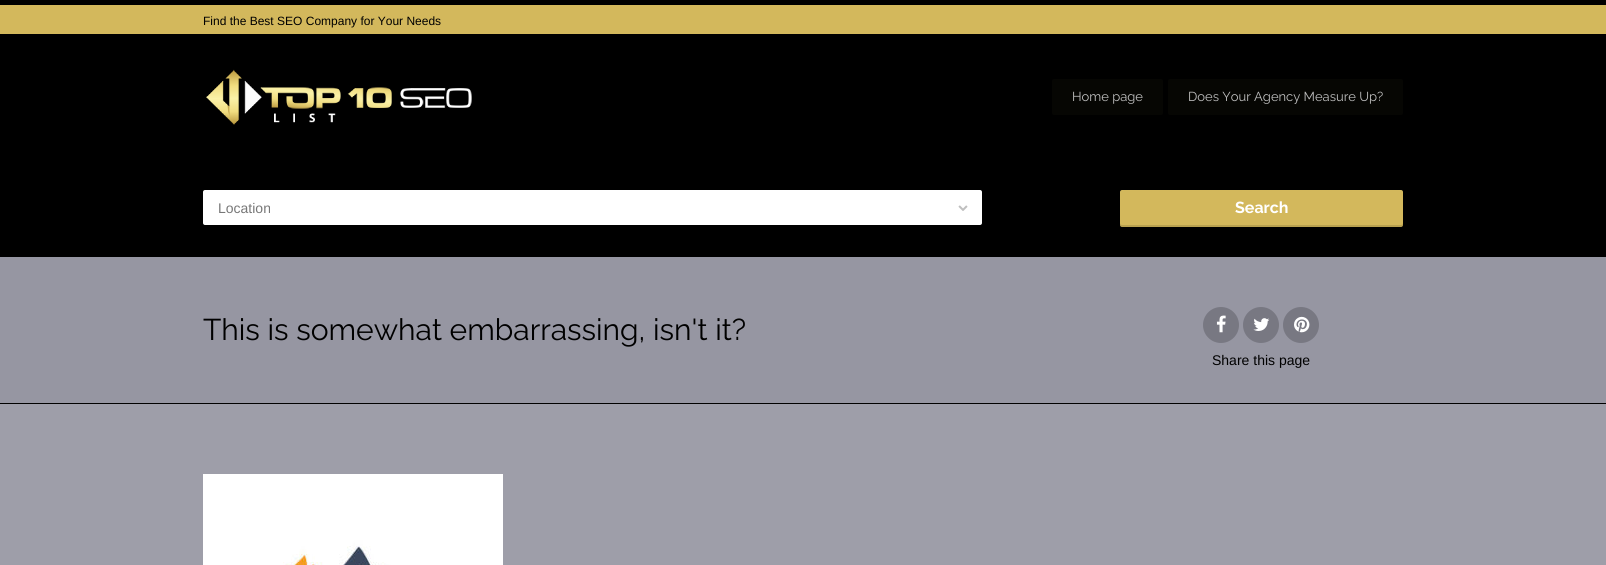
#include <cairo/cairo.h>
#include <math.h>
#include <stddef.h>


static void rounded_rect(cairo_t *cr, double x, double y, double w, double h, double r) {
  cairo_new_sub_path(cr);
  cairo_arc(cr, x + w - r, y + h - r, r, 0, M_PI / 2);
  cairo_arc(cr, x + r, y + h - r, r, M_PI / 2, M_PI);
  cairo_arc(cr, x + r, y + r, r, M_PI, 1.5 * M_PI);
  cairo_arc(cr, x + w - r, y + r, r, 1.5 * M_PI, 2 * M_PI);
  cairo_close_path(cr);
}

static void draw_image(cairo_t *cr, const char *path, double x, double y, double w, double h) {
  cairo_surface_t *image = cairo_image_surface_create_from_png(path);
  cairo_save(cr);
  cairo_set_source_surface(cr, image, x, y);
  cairo_rectangle(cr, x, y, w, h);
  cairo_fill(cr);
  cairo_restore(cr);
  cairo_surface_destroy(image);
}

static void draw(cairo_t *cr) {
  cairo_set_source_rgb(cr, 158 / 255.0, 158 / 255.0, 169 / 255.0);
  cairo_paint(cr);
  cairo_set_source_rgb(cr, 211 / 255.0, 184 / 255.0, 92 / 255.0);
  cairo_rectangle(cr, 0, 5, 1606, 29);
  cairo_fill(cr);
  cairo_set_source_rgb(cr, 0, 0, 0);
  cairo_rectangle(cr, 0, 0, 1606, 5);
  cairo_fill(cr);
  cairo_rectangle(cr, 0, 34, 1606, 223);
  cairo_fill(cr);
  draw_image(cr, "images/1.png", 206, 69, 266, 56);
  cairo_set_source_rgb(cr, 6 / 255.0, 6 / 255.0, 3 / 255.0);
  rounded_rect(cr, 1052, 79, 111, 36, 2);
  cairo_fill(cr);
  rounded_rect(cr, 1168, 79, 235, 36, 2);
  cairo_fill(cr);
  cairo_set_source_rgb(cr, 1, 1, 1);
  rounded_rect(cr, 203, 190, 779, 35, 2);
  cairo_fill(cr);
  draw_image(cr, "images/2.png", 958, 205, 10, 6);
  cairo_set_source_rgb(cr, 211 / 255.0, 184 / 255.0, 92 / 255.0);
  rounded_rect(cr, 1120, 190, 283, 37, 2);
  cairo_fill(cr);
  cairo_set_source_rgba(cr, 0, 0, 0, 0.07);
  cairo_new_path(cr);
  cairo_move_to(cr, 1120, 223);
  cairo_curve_to(cr, 1120, 225, 1120, 227, 1122, 227);
  cairo_line_to(cr, 1401, 227);
  cairo_curve_to(cr, 1403, 227, 1403, 225, 1403, 223);
  cairo_curve_to(cr, 1403, 224, 1402, 225, 1401, 225);
  cairo_line_to(cr, 1122, 225);
  cairo_curve_to(cr, 1121, 225, 1120, 224, 1120, 223);
  cairo_close_path(cr);
  cairo_fill(cr);
  cairo_new_path(cr);
  cairo_move_to(cr, 1120, 223);
  cairo_curve_to(cr, 1120, 225, 1120, 227, 1122, 227);
  cairo_line_to(cr, 1401, 227);
  cairo_curve_to(cr, 1403, 227, 1403, 225, 1403, 223);
  cairo_curve_to(cr, 1403, 224, 1402, 225, 1401, 225);
  cairo_line_to(cr, 1122, 225);
  cairo_curve_to(cr, 1121, 225, 1120, 224, 1120, 223);
  cairo_close_path(cr);
  cairo_fill(cr);
  cairo_set_source_rgb(cr, 150 / 255.0, 150 / 255.0, 162 / 255.0);
  cairo_rectangle(cr, 0, 257, 1606, 146);
  cairo_fill(cr);
  cairo_set_source_rgb(cr, 0, 0, 0);
  cairo_rectangle(cr, 0, 403, 1606, 1);
  cairo_fill(cr);
  cairo_set_source_rgb(cr, 120 / 255.0, 120 / 255.0, 130 / 255.0);
  cairo_arc(cr, 1221, 325, 18, 0, 2 * M_PI);
  cairo_fill(cr);
  draw_image(cr, "images/3.png", 1216, 315, 10, 18);
  cairo_arc(cr, 1261, 325, 18, 0, 2 * M_PI);
  cairo_fill(cr);
  draw_image(cr, "images/4.png", 1253, 318, 17, 13);
  cairo_arc(cr, 1301, 325, 18, 0, 2 * M_PI);
  cairo_fill(cr);
  draw_image(cr, "images/5.png", 1294, 316, 16, 17);
  draw_image(cr, "images/6.png", 203, 474, 300, 91);
  cairo_select_font_face(cr, "Liberation Sans", CAIRO_FONT_SLANT_NORMAL, CAIRO_FONT_WEIGHT_NORMAL);
  cairo_set_font_size(cr, 12);
  cairo_set_source_rgb(cr, 0, 0, 0);
  cairo_move_to(cr, 203, 25);
  cairo_show_text(cr, "Find the Best SEO Company for Your Needs");
  cairo_select_font_face(cr, "Raleway", CAIRO_FONT_SLANT_NORMAL, CAIRO_FONT_WEIGHT_NORMAL);
  cairo_set_font_size(cr, 13);
  cairo_set_source_rgb(cr, 191 / 255.0, 191 / 255.0, 191 / 255.0);
  cairo_move_to(cr, 1072, 101);
  cairo_show_text(cr, "Home page");
  cairo_move_to(cr, 1188, 101);
  cairo_show_text(cr, "Does Your Agency Measure Up?");
  cairo_select_font_face(cr, "Liberation Sans", CAIRO_FONT_SLANT_NORMAL, CAIRO_FONT_WEIGHT_NORMAL);
  cairo_set_font_size(cr, 14);
  cairo_set_source_rgb(cr, 119 / 255.0, 119 / 255.0, 119 / 255.0);
  cairo_move_to(cr, 218, 213);
  cairo_show_text(cr, "Location");
  cairo_select_font_face(cr, "Raleway", CAIRO_FONT_SLANT_NORMAL, CAIRO_FONT_WEIGHT_BOLD);
  cairo_set_font_size(cr, 16);
  cairo_set_source_rgb(cr, 1, 1, 1);
  cairo_move_to(cr, 1235, 213);
  cairo_show_text(cr, "Search");
  cairo_select_font_face(cr, "Raleway", CAIRO_FONT_SLANT_NORMAL, CAIRO_FONT_WEIGHT_NORMAL);
  cairo_set_font_size(cr, 30);
  cairo_set_source_rgb(cr, 0, 0, 0);
  cairo_move_to(cr, 203, 340);
  cairo_show_text(cr, "This is somewhat embarrassing, isn't it?");
  cairo_select_font_face(cr, "Liberation Sans", CAIRO_FONT_SLANT_NORMAL, CAIRO_FONT_WEIGHT_NORMAL);
  cairo_set_font_size(cr, 14);
  cairo_move_to(cr, 1212, 365);
  cairo_show_text(cr, "Share this page");
}

int main(void) {
  cairo_surface_t *surface = cairo_image_surface_create(CAIRO_FORMAT_RGB24, 1606, 565);
  cairo_t *cr = cairo_create(surface);
  cairo_font_options_t *options = cairo_font_options_create();
  cairo_font_options_set_hint_metrics(options, CAIRO_HINT_METRICS_OFF);
  cairo_font_options_set_hint_style(options, CAIRO_HINT_STYLE_NONE);
  cairo_set_font_options(cr, options);
  cairo_set_miter_limit(cr, 4);
  draw(cr);
  cairo_surface_write_to_png(surface, "out.png");
  cairo_font_options_destroy(options);
  cairo_destroy(cr);
  cairo_surface_destroy(surface);
  return 0;
}
